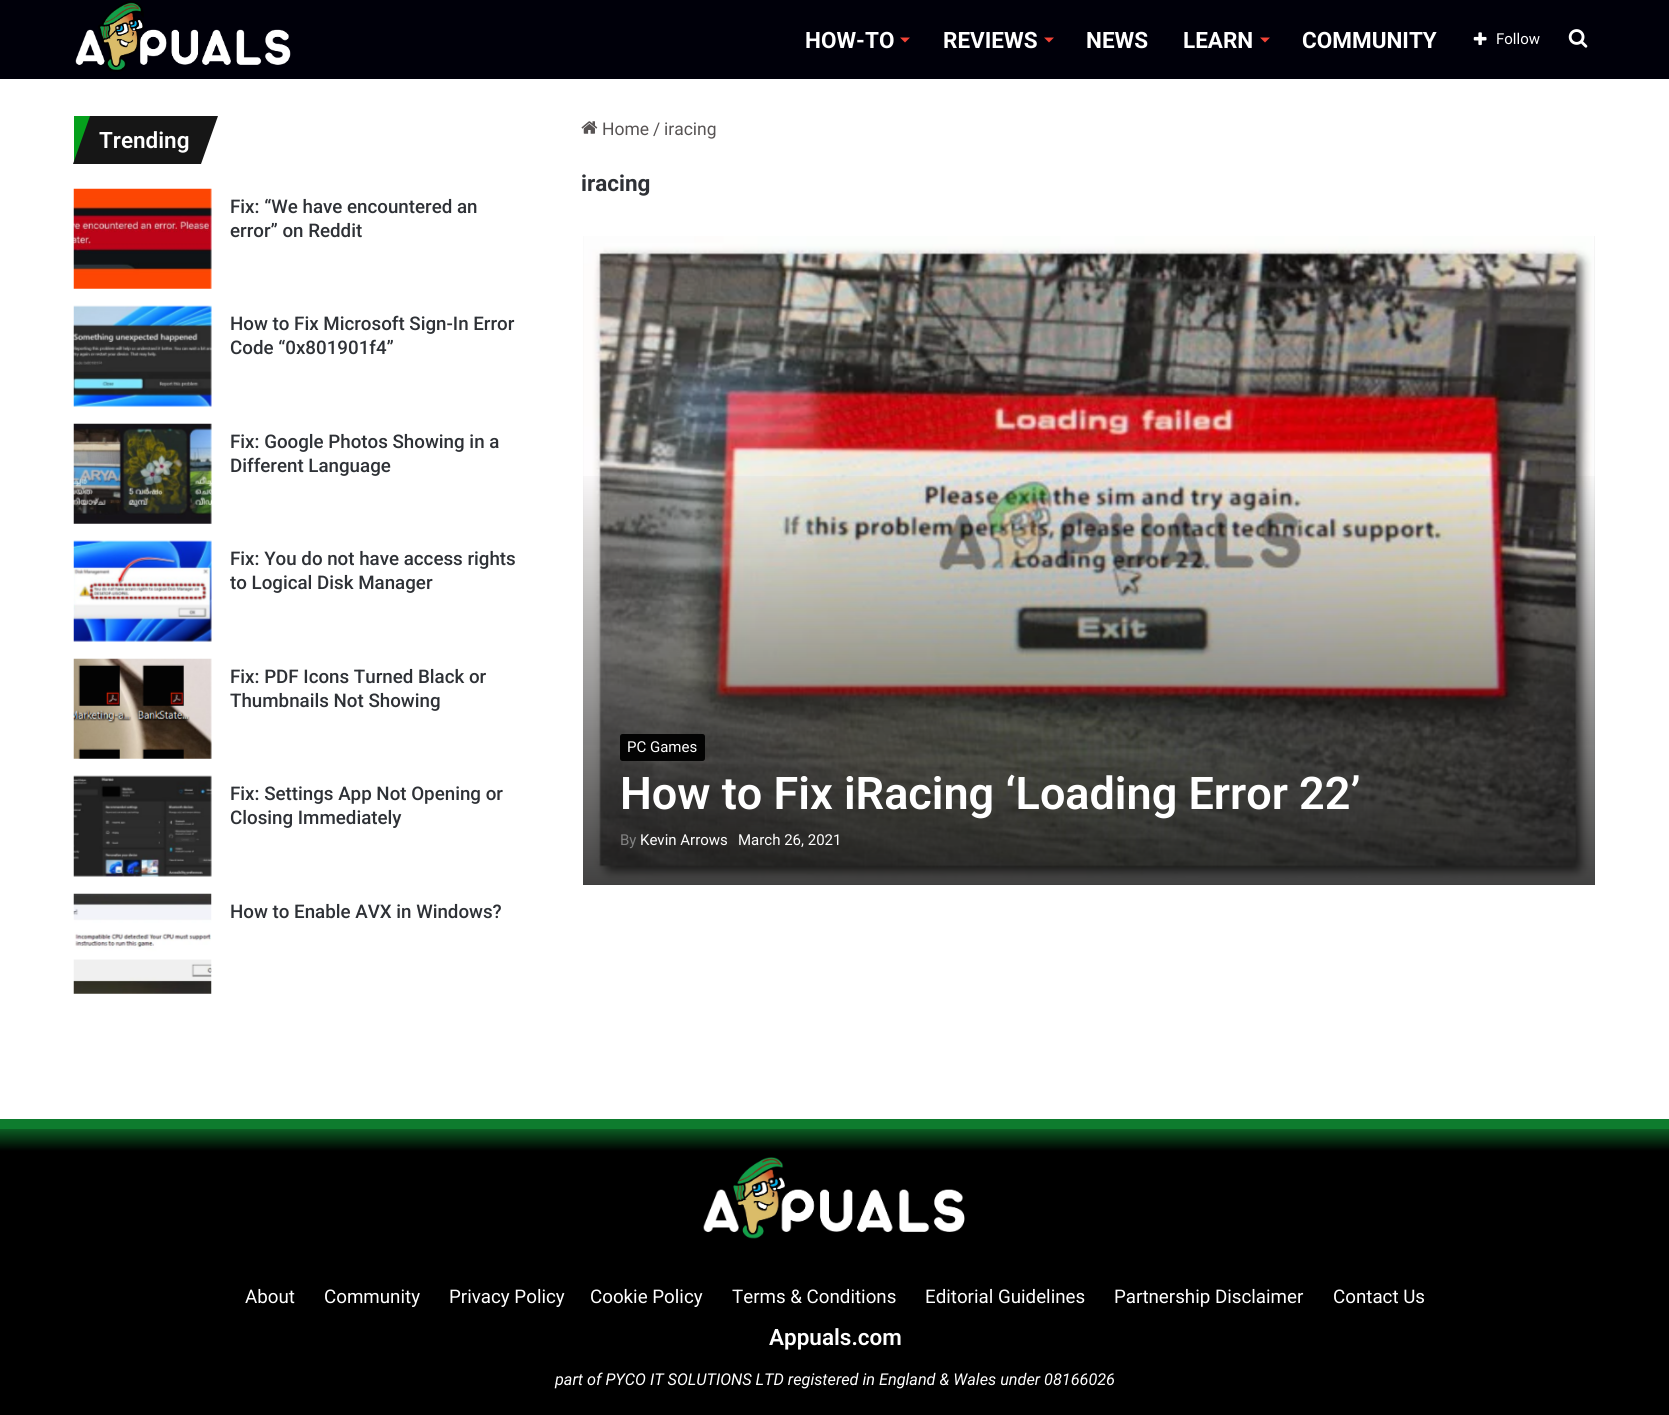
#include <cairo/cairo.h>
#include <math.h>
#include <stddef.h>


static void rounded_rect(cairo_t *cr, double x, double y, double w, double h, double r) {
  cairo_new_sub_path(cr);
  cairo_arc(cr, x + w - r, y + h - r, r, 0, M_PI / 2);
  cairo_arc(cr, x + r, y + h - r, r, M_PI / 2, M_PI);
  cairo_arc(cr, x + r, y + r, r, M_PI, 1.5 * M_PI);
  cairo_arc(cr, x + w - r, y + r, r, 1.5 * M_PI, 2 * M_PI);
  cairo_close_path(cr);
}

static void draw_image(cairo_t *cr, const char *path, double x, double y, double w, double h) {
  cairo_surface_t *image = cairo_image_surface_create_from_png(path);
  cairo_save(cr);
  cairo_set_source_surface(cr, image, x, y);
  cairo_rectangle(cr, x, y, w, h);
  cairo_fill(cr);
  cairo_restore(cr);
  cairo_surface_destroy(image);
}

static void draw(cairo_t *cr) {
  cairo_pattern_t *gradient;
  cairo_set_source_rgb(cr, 1, 1, 1);
  cairo_paint(cr);
  cairo_set_source_rgb(cr, 0, 0, 10 / 255.0);
  cairo_rectangle(cr, 0, 0, 1669, 79);
  cairo_fill(cr);
  draw_image(cr, "images/1.png", 75, 1, 216, 71);
  cairo_set_source_rgb(cr, 244 / 255.0, 67 / 255.0, 54 / 255.0);
  cairo_new_path(cr);
  cairo_move_to(cr, 900, 37.5);
  cairo_line_to(cr, 910, 37.5);
  cairo_line_to(cr, 905, 42.5);
  cairo_close_path(cr);
  cairo_fill(cr);
  cairo_new_path(cr);
  cairo_move_to(cr, 1044, 37.5);
  cairo_line_to(cr, 1054, 37.5);
  cairo_line_to(cr, 1049, 42.5);
  cairo_close_path(cr);
  cairo_fill(cr);
  cairo_new_path(cr);
  cairo_move_to(cr, 1260, 37.5);
  cairo_line_to(cr, 1270, 37.5);
  cairo_line_to(cr, 1265, 42.5);
  cairo_close_path(cr);
  cairo_fill(cr);
  draw_image(cr, "images/2.png", 1473, 32, 14, 14);
  draw_image(cr, "images/3.png", 1568, 29, 20, 19);
  cairo_set_source_rgb(cr, 5 / 255.0, 160 / 255.0, 28 / 255.0);
  cairo_rectangle(cr, 74, 116, 16, 46);
  cairo_fill(cr);
  cairo_set_source_rgb(cr, 22 / 255.0, 22 / 255.0, 22 / 255.0);
  cairo_new_path(cr);
  cairo_move_to(cr, 90, 116);
  cairo_line_to(cr, 218, 116);
  cairo_line_to(cr, 201, 164);
  cairo_line_to(cr, 73, 164);
  cairo_close_path(cr);
  cairo_fill(cr);
  draw_image(cr, "images/4.png", 73, 188, 139, 101);
  draw_image(cr, "images/5.png", 73, 305, 139, 102);
  draw_image(cr, "images/6.png", 73, 423, 139, 101);
  draw_image(cr, "images/7.png", 73, 540, 139, 102);
  draw_image(cr, "images/8.png", 73, 658, 139, 101);
  draw_image(cr, "images/9.png", 73, 775, 139, 102);
  draw_image(cr, "images/10.png", 73, 893, 139, 101);
  draw_image(cr, "images/11.png", 581, 121, 17, 13);
  cairo_set_source_rgb(cr, 205 / 255.0, 205 / 255.0, 205 / 255.0);
  cairo_rectangle(cr, 583, 236, 1012, 649);
  cairo_fill(cr);
  draw_image(cr, "images/12.png", 583, 236, 1012, 649);
  gradient = cairo_pattern_create_linear(1089, 464, 1089, 885);
  cairo_pattern_add_color_stop_rgba(gradient, 0, 3 / 255.0, 3 / 255.0, 3 / 255.0, 0);
  cairo_pattern_add_color_stop_rgba(gradient, 1, 3 / 255.0, 3 / 255.0, 3 / 255.0, 0.75);
  cairo_set_source(cr, gradient);
  cairo_pattern_destroy(gradient);
  cairo_rectangle(cr, 583, 476, 1012, 409);
  cairo_fill(cr);
  cairo_set_source_rgb(cr, 3 / 255.0, 3 / 255.0, 3 / 255.0);
  rounded_rect(cr, 620, 734, 85, 27, 2.5);
  cairo_fill(cr);
  gradient = cairo_pattern_create_linear(835, 1129, 835, 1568);
  cairo_pattern_add_color_stop_rgba(gradient, 0, 11 / 255.0, 93 / 255.0, 35 / 255.0, 1);
  cairo_pattern_add_color_stop_rgba(gradient, 0.05, 0, 0, 0, 1);
  cairo_set_source(cr, gradient);
  cairo_pattern_destroy(gradient);
  cairo_rectangle(cr, 0, 1129, 1669, 286);
  cairo_fill(cr);
  cairo_set_source_rgb(cr, 14 / 255.0, 124 / 255.0, 46 / 255.0);
  cairo_rectangle(cr, 0, 1119, 1669, 10);
  cairo_fill(cr);
  draw_image(cr, "images/13.png", 703, 1157, 262, 82);
  cairo_select_font_face(cr, "Roboto", CAIRO_FONT_SLANT_NORMAL, CAIRO_FONT_WEIGHT_BOLD);
  cairo_set_font_size(cr, 22.5);
  cairo_set_source_rgb(cr, 1, 1, 1);
  cairo_move_to(cr, 805, 48);
  cairo_show_text(cr, "HOW-TO");
  cairo_move_to(cr, 943, 48);
  cairo_show_text(cr, "REVIEWS");
  cairo_move_to(cr, 1086, 48);
  cairo_show_text(cr, "NEWS");
  cairo_move_to(cr, 1183, 48);
  cairo_show_text(cr, "LEARN");
  cairo_move_to(cr, 1302, 48);
  cairo_show_text(cr, "COMMUNITY");
  cairo_select_font_face(cr, "Roboto", CAIRO_FONT_SLANT_NORMAL, CAIRO_FONT_WEIGHT_NORMAL);
  cairo_set_font_size(cr, 15);
  cairo_move_to(cr, 1496, 44);
  cairo_show_text(cr, "Follow");
  cairo_select_font_face(cr, "Roboto SemiBold", CAIRO_FONT_SLANT_NORMAL, CAIRO_FONT_WEIGHT_NORMAL);
  cairo_set_font_size(cr, 22.5);
  cairo_move_to(cr, 99, 148);
  cairo_show_text(cr, "Trending");
  cairo_select_font_face(cr, "Roboto Medium", CAIRO_FONT_SLANT_NORMAL, CAIRO_FONT_WEIGHT_NORMAL);
  cairo_set_font_size(cr, 18.75);
  cairo_set_source_rgb(cr, 46 / 255.0, 49 / 255.0, 54 / 255.0);
  cairo_move_to(cr, 230, 213);
  cairo_show_text(cr, "Fix: “We have encountered an");
  cairo_move_to(cr, 230, 237);
  cairo_show_text(cr, "error” on Reddit");
  cairo_move_to(cr, 230, 330);
  cairo_show_text(cr, "How to Fix Microsoft Sign-In Error");
  cairo_move_to(cr, 230, 354);
  cairo_show_text(cr, "Code “0x801901f4”");
  cairo_move_to(cr, 230, 448);
  cairo_show_text(cr, "Fix: Google Photos Showing in a");
  cairo_move_to(cr, 230, 472);
  cairo_show_text(cr, "Different Language");
  cairo_move_to(cr, 230, 565);
  cairo_show_text(cr, "Fix: You do not have access rights");
  cairo_move_to(cr, 230, 589);
  cairo_show_text(cr, "to Logical Disk Manager");
  cairo_move_to(cr, 230, 683);
  cairo_show_text(cr, "Fix: PDF Icons Turned Black or");
  cairo_move_to(cr, 230, 707);
  cairo_show_text(cr, "Thumbnails Not Showing");
  cairo_move_to(cr, 230, 800);
  cairo_show_text(cr, "Fix: Settings App Not Opening or");
  cairo_move_to(cr, 230, 824);
  cairo_show_text(cr, "Closing Immediately");
  cairo_move_to(cr, 230, 918);
  cairo_show_text(cr, "How to Enable AVX in Windows?");
  cairo_select_font_face(cr, "Roboto", CAIRO_FONT_SLANT_NORMAL, CAIRO_FONT_WEIGHT_NORMAL);
  cairo_set_font_size(cr, 17.5);
  cairo_set_source_rgb(cr, 88 / 255.0, 84 / 255.0, 84 / 255.0);
  cairo_move_to(cr, 602, 135);
  cairo_show_text(cr, "Home");
  cairo_move_to(cr, 653, 135);
  cairo_show_text(cr, "/");
  cairo_move_to(cr, 664, 135);
  cairo_show_text(cr, "iracing");
  cairo_select_font_face(cr, "Roboto", CAIRO_FONT_SLANT_NORMAL, CAIRO_FONT_WEIGHT_BOLD);
  cairo_set_font_size(cr, 22.5);
  cairo_set_source_rgb(cr, 46 / 255.0, 49 / 255.0, 54 / 255.0);
  cairo_move_to(cr, 581, 191);
  cairo_show_text(cr, "iracing");
  cairo_select_font_face(cr, "Roboto", CAIRO_FONT_SLANT_NORMAL, CAIRO_FONT_WEIGHT_NORMAL);
  cairo_set_font_size(cr, 15);
  cairo_set_source_rgb(cr, 1, 1, 1);
  cairo_move_to(cr, 627, 752);
  cairo_show_text(cr, "PC Games");
  cairo_select_font_face(cr, "Roboto SemiBold", CAIRO_FONT_SLANT_NORMAL, CAIRO_FONT_WEIGHT_NORMAL);
  cairo_set_font_size(cr, 45);
  cairo_move_to(cr, 620, 809);
  cairo_show_text(cr, "How to Fix iRacing ‘Loading Error 22’");
  cairo_select_font_face(cr, "Roboto", CAIRO_FONT_SLANT_NORMAL, CAIRO_FONT_WEIGHT_NORMAL);
  cairo_set_font_size(cr, 15);
  cairo_set_source_rgb(cr, 129 / 255.0, 129 / 255.0, 129 / 255.0);
  cairo_move_to(cr, 620, 845);
  cairo_show_text(cr, "By");
  cairo_set_source_rgb(cr, 1, 1, 1);
  cairo_move_to(cr, 640, 845);
  cairo_show_text(cr, "Kevin Arrows");
  cairo_move_to(cr, 738, 845);
  cairo_show_text(cr, "March 26, 2021");
  cairo_set_font_size(cr, 18.75);
  cairo_move_to(cr, 245, 1303);
  cairo_show_text(cr, "About");
  cairo_move_to(cr, 324, 1303);
  cairo_show_text(cr, "Community");
  cairo_move_to(cr, 449, 1303);
  cairo_show_text(cr, "Privacy Policy");
  cairo_move_to(cr, 590, 1303);
  cairo_show_text(cr, "Cookie Policy");
  cairo_move_to(cr, 732, 1303);
  cairo_show_text(cr, "Terms & Conditions");
  cairo_move_to(cr, 925, 1303);
  cairo_show_text(cr, "Editorial Guidelines");
  cairo_move_to(cr, 1114, 1303);
  cairo_show_text(cr, "Partnership Disclaimer");
  cairo_move_to(cr, 1333, 1303);
  cairo_show_text(cr, "Contact Us");
  cairo_select_font_face(cr, "Roboto SemiBold", CAIRO_FONT_SLANT_NORMAL, CAIRO_FONT_WEIGHT_NORMAL);
  cairo_set_font_size(cr, 22.5);
  cairo_move_to(cr, 769, 1345);
  cairo_show_text(cr, "Appuals.com");
  cairo_select_font_face(cr, "Roboto", CAIRO_FONT_SLANT_ITALIC, CAIRO_FONT_WEIGHT_NORMAL);
  cairo_set_font_size(cr, 16.25);
  cairo_move_to(cr, 555, 1385);
  cairo_show_text(cr, "part of PYCO IT SOLUTIONS LTD registered in England & Wales under 08166026");
}

int main(void) {
  cairo_surface_t *surface = cairo_image_surface_create(CAIRO_FORMAT_RGB24, 1669, 1415);
  cairo_t *cr = cairo_create(surface);
  cairo_font_options_t *options = cairo_font_options_create();
  cairo_font_options_set_hint_metrics(options, CAIRO_HINT_METRICS_OFF);
  cairo_font_options_set_hint_style(options, CAIRO_HINT_STYLE_NONE);
  cairo_set_font_options(cr, options);
  cairo_set_miter_limit(cr, 4);
  draw(cr);
  cairo_surface_write_to_png(surface, "out.png");
  cairo_font_options_destroy(options);
  cairo_destroy(cr);
  cairo_surface_destroy(surface);
  return 0;
}
